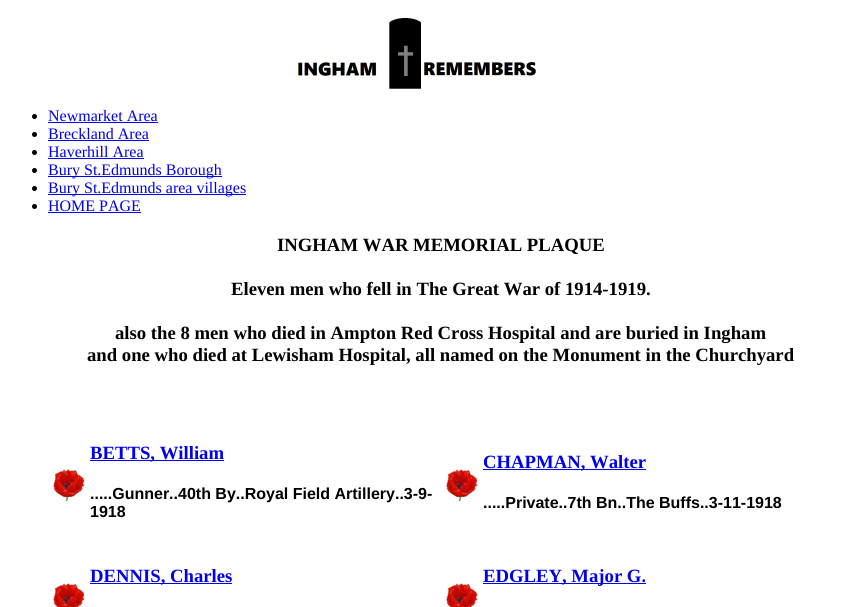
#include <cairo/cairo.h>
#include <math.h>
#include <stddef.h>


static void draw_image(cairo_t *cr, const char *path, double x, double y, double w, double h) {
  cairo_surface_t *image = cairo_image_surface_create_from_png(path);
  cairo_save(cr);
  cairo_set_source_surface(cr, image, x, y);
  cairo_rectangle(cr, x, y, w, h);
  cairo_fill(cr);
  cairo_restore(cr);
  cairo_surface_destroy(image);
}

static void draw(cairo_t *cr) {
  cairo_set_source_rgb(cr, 1, 1, 1);
  cairo_paint(cr);
  draw_image(cr, "images/1.png", 296, 17, 240, 72);
  cairo_set_source_rgb(cr, 0, 0, 0);
  cairo_arc(cr, 34.5, 116.5, 2.5, 0, 2 * M_PI);
  cairo_fill(cr);
  cairo_set_source_rgb(cr, 0, 0, 238 / 255.0);
  cairo_rectangle(cr, 48, 122, 110, 1);
  cairo_fill(cr);
  cairo_set_source_rgb(cr, 0, 0, 0);
  cairo_arc(cr, 34.5, 134.5, 2.5, 0, 2 * M_PI);
  cairo_fill(cr);
  cairo_set_source_rgb(cr, 0, 0, 238 / 255.0);
  cairo_rectangle(cr, 48, 140, 101, 1);
  cairo_fill(cr);
  cairo_set_source_rgb(cr, 0, 0, 0);
  cairo_arc(cr, 34.5, 152.5, 2.5, 0, 2 * M_PI);
  cairo_fill(cr);
  cairo_set_source_rgb(cr, 0, 0, 238 / 255.0);
  cairo_rectangle(cr, 48, 158, 96, 1);
  cairo_fill(cr);
  cairo_set_source_rgb(cr, 0, 0, 0);
  cairo_arc(cr, 34.5, 170.5, 2.5, 0, 2 * M_PI);
  cairo_fill(cr);
  cairo_set_source_rgb(cr, 0, 0, 238 / 255.0);
  cairo_rectangle(cr, 48, 176, 174, 1);
  cairo_fill(cr);
  cairo_set_source_rgb(cr, 0, 0, 0);
  cairo_arc(cr, 34.5, 188.5, 2.5, 0, 2 * M_PI);
  cairo_fill(cr);
  cairo_set_source_rgb(cr, 0, 0, 238 / 255.0);
  cairo_rectangle(cr, 48, 194, 198, 1);
  cairo_fill(cr);
  cairo_set_source_rgb(cr, 0, 0, 0);
  cairo_arc(cr, 34.5, 206.5, 2.5, 0, 2 * M_PI);
  cairo_fill(cr);
  cairo_set_source_rgb(cr, 0, 0, 238 / 255.0);
  cairo_rectangle(cr, 48, 212, 93, 1);
  cairo_fill(cr);
  draw_image(cr, "images/2.png", 51, 466, 35, 35);
  cairo_rectangle(cr, 90, 460, 134, 1);
  cairo_fill(cr);
  draw_image(cr, "images/2.png", 444, 466, 35, 35);
  cairo_rectangle(cr, 483, 469, 163, 1);
  cairo_fill(cr);
  cairo_rectangle(cr, 90, 583, 142, 1);
  cairo_fill(cr);
  cairo_rectangle(cr, 483, 583, 163, 1);
  cairo_fill(cr);
  draw_image(cr, "images/3.png", 51, 580, 35, 27);
  draw_image(cr, "images/3.png", 444, 580, 35, 27);
  cairo_select_font_face(cr, "Liberation Serif", CAIRO_FONT_SLANT_NORMAL, CAIRO_FONT_WEIGHT_NORMAL);
  cairo_set_font_size(cr, 16);
  cairo_move_to(cr, 48, 121);
  cairo_show_text(cr, "Newmarket Area");
  cairo_move_to(cr, 48, 139);
  cairo_show_text(cr, "Breckland Area");
  cairo_move_to(cr, 48, 157);
  cairo_show_text(cr, "Haverhill Area");
  cairo_move_to(cr, 48, 175);
  cairo_show_text(cr, "Bury St.Edmunds Borough");
  cairo_move_to(cr, 48, 193);
  cairo_show_text(cr, "Bury St.Edmunds area villages");
  cairo_move_to(cr, 48, 211);
  cairo_show_text(cr, "HOME PAGE");
  cairo_select_font_face(cr, "Liberation Serif", CAIRO_FONT_SLANT_NORMAL, CAIRO_FONT_WEIGHT_BOLD);
  cairo_set_font_size(cr, 18.7);
  cairo_set_source_rgb(cr, 0, 0, 0);
  cairo_move_to(cr, 277, 251);
  cairo_show_text(cr, "INGHAM WAR MEMORIAL PLAQUE");
  cairo_move_to(cr, 231, 295);
  cairo_show_text(cr, "Eleven men who fell in The Great War of 1914-1919.");
  cairo_move_to(cr, 115, 339);
  cairo_show_text(cr, "also the 8 men who died in Ampton Red Cross Hospital and are buried in Ingham");
  cairo_move_to(cr, 87, 361);
  cairo_show_text(cr, "and one who died at Lewisham Hospital, all named on the Monument in the Churchyard");
  cairo_set_source_rgb(cr, 0, 0, 238 / 255.0);
  cairo_move_to(cr, 90, 459);
  cairo_show_text(cr, "BETTS, William");
  cairo_select_font_face(cr, "Liberation Sans", CAIRO_FONT_SLANT_NORMAL, CAIRO_FONT_WEIGHT_BOLD);
  cairo_set_font_size(cr, 16);
  cairo_set_source_rgb(cr, 0, 0, 0);
  cairo_move_to(cr, 90, 499);
  cairo_show_text(cr, ".....Gunner..40th By..Royal Field Artillery..3-9-");
  cairo_move_to(cr, 90, 517);
  cairo_show_text(cr, "1918");
  cairo_select_font_face(cr, "Liberation Serif", CAIRO_FONT_SLANT_NORMAL, CAIRO_FONT_WEIGHT_BOLD);
  cairo_set_font_size(cr, 18.7);
  cairo_set_source_rgb(cr, 0, 0, 238 / 255.0);
  cairo_move_to(cr, 483, 468);
  cairo_show_text(cr, "CHAPMAN, Walter");
  cairo_select_font_face(cr, "Liberation Sans", CAIRO_FONT_SLANT_NORMAL, CAIRO_FONT_WEIGHT_BOLD);
  cairo_set_font_size(cr, 16);
  cairo_set_source_rgb(cr, 0, 0, 0);
  cairo_move_to(cr, 483, 508);
  cairo_show_text(cr, ".....Private..7th Bn..The Buffs..3-11-1918");
  cairo_select_font_face(cr, "Liberation Serif", CAIRO_FONT_SLANT_NORMAL, CAIRO_FONT_WEIGHT_BOLD);
  cairo_set_font_size(cr, 18.7);
  cairo_set_source_rgb(cr, 0, 0, 238 / 255.0);
  cairo_move_to(cr, 90, 582);
  cairo_show_text(cr, "DENNIS, Charles");
  cairo_move_to(cr, 483, 582);
  cairo_show_text(cr, "EDGLEY, Major G.");
}

int main(void) {
  cairo_surface_t *surface = cairo_image_surface_create(CAIRO_FORMAT_RGB24, 842, 607);
  cairo_t *cr = cairo_create(surface);
  cairo_font_options_t *options = cairo_font_options_create();
  cairo_font_options_set_hint_metrics(options, CAIRO_HINT_METRICS_OFF);
  cairo_font_options_set_hint_style(options, CAIRO_HINT_STYLE_NONE);
  cairo_set_font_options(cr, options);
  cairo_set_miter_limit(cr, 4);
  draw(cr);
  cairo_surface_write_to_png(surface, "out.png");
  cairo_font_options_destroy(options);
  cairo_destroy(cr);
  cairo_surface_destroy(surface);
  return 0;
}
